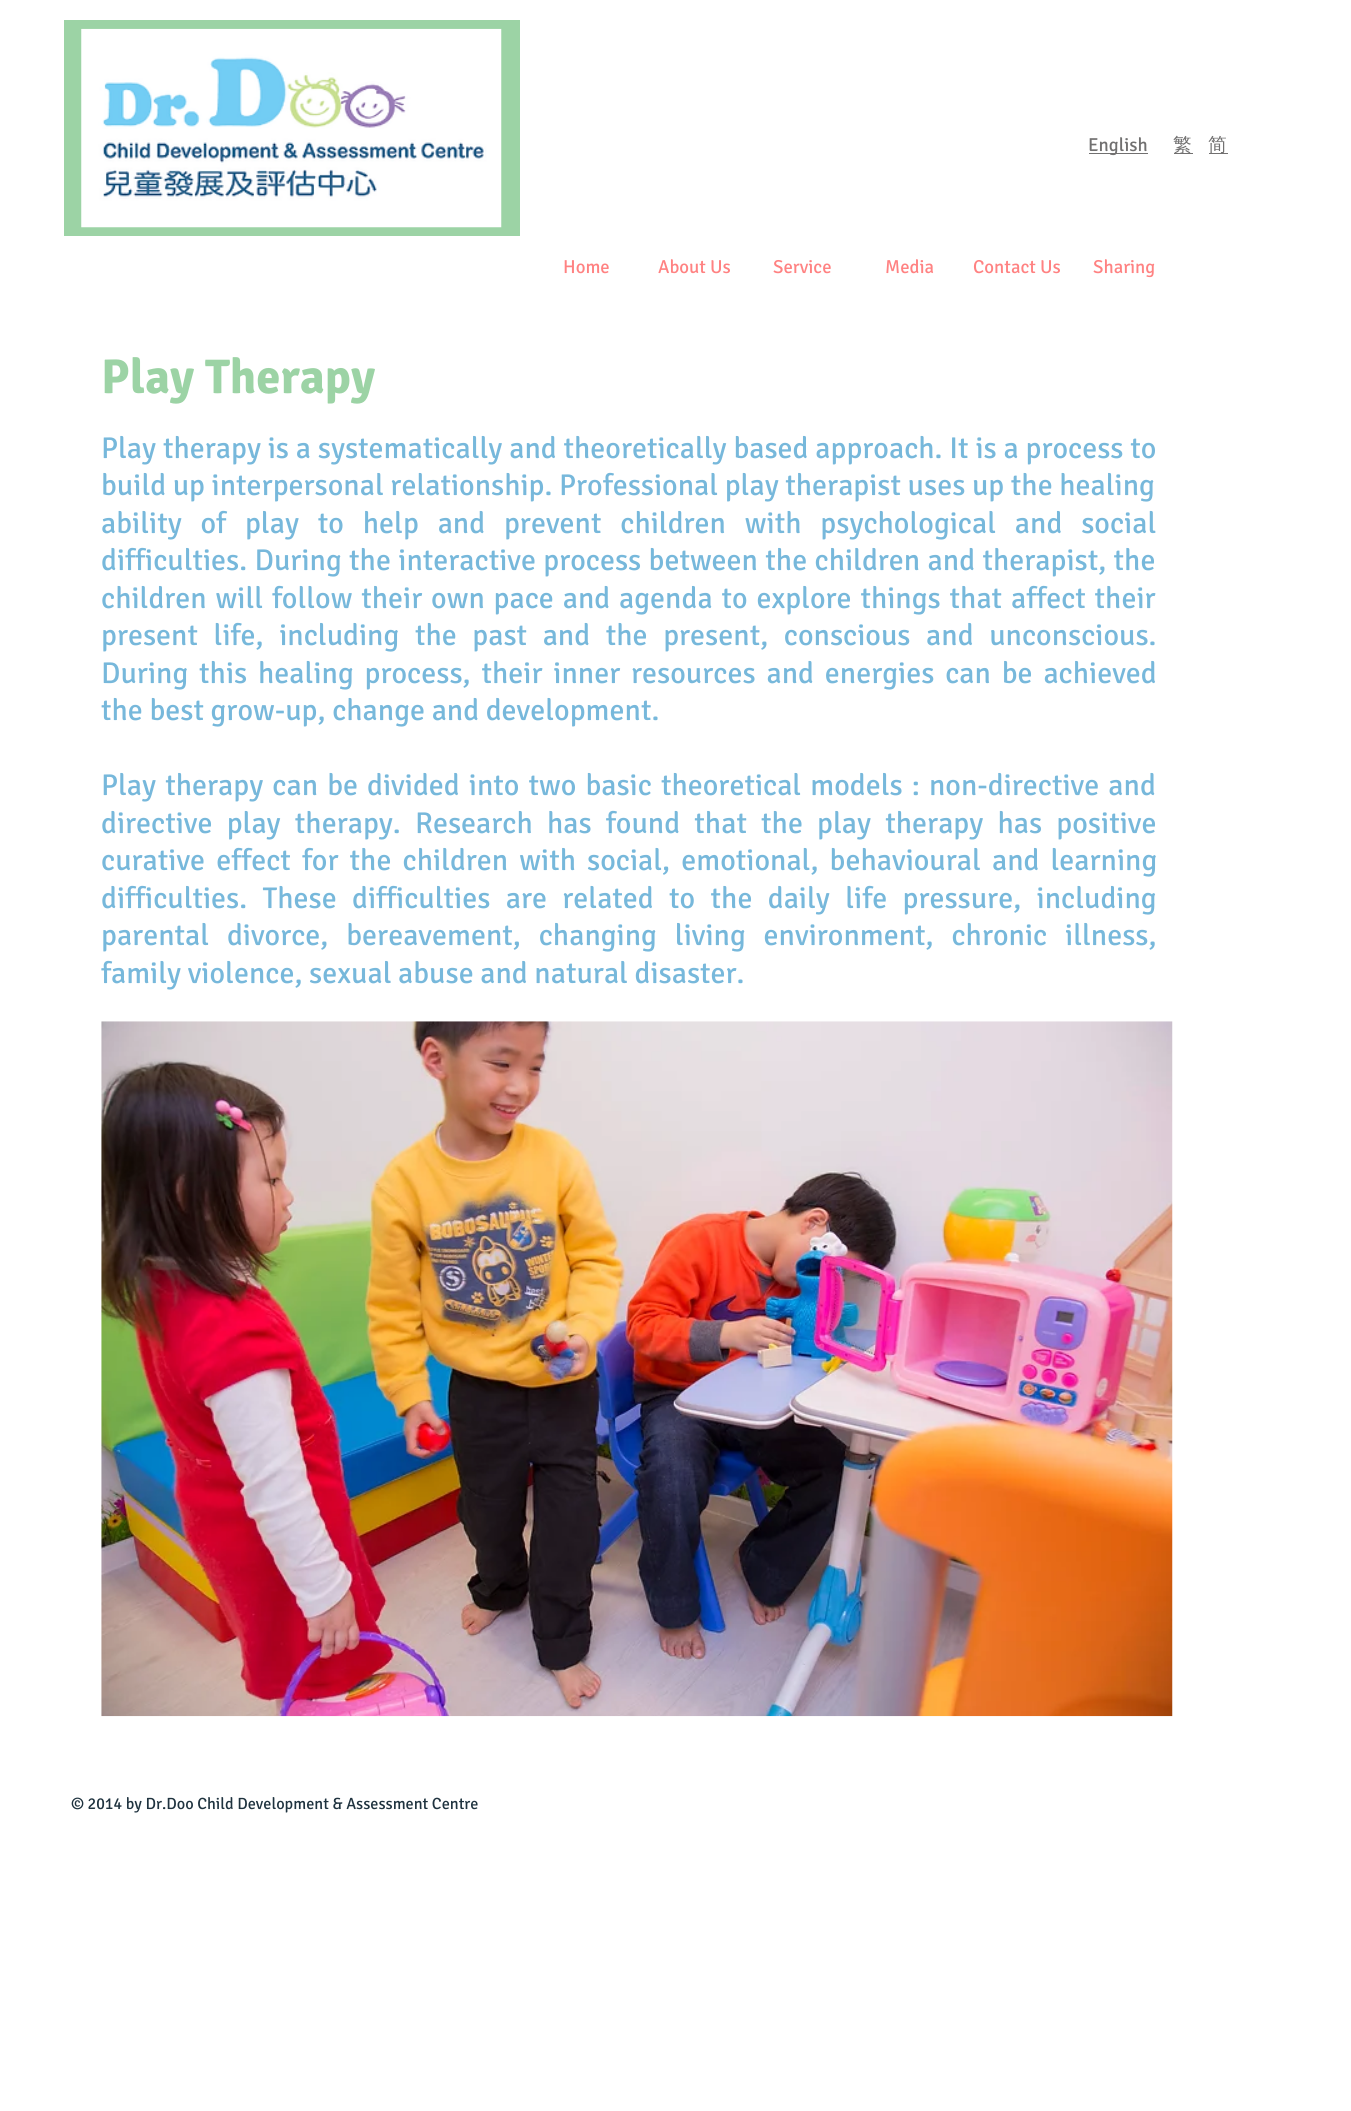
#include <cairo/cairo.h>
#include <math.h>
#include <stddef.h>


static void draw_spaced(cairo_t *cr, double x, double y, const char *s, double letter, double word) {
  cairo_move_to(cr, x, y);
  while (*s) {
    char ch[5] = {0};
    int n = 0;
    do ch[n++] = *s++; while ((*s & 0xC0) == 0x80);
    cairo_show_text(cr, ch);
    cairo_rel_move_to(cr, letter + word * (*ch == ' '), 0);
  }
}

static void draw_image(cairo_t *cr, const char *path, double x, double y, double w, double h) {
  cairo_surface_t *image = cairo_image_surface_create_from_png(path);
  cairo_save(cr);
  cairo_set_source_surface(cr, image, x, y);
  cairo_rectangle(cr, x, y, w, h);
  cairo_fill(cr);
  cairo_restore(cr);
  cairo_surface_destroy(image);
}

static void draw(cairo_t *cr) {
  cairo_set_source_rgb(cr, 1, 1, 1);
  cairo_paint(cr);
  cairo_set_source_rgb(cr, 156 / 255.0, 211 / 255.0, 165 / 255.0);
  cairo_rectangle(cr, 64, 20, 456, 216);
  cairo_fill(cr);
  draw_image(cr, "images/1.png", 81, 28, 421, 200);
  cairo_set_source_rgb(cr, 113 / 255.0, 112 / 255.0, 112 / 255.0);
  cairo_rectangle(cr, 1089, 153, 59, 1);
  cairo_fill(cr);
  cairo_rectangle(cr, 1174, 153, 19, 1);
  cairo_fill(cr);
  cairo_rectangle(cr, 1209, 153, 19, 1);
  cairo_fill(cr);
  draw_image(cr, "images/2.png", 101, 1021, 1072, 696);
  cairo_select_font_face(cr, "Signika", CAIRO_FONT_SLANT_NORMAL, CAIRO_FONT_WEIGHT_NORMAL);
  cairo_set_font_size(cr, 18.75);
  cairo_move_to(cr, 1088, 151);
  cairo_show_text(cr, "English");
  cairo_select_font_face(cr, "WenQuanYi Zen Hei Medium", CAIRO_FONT_SLANT_NORMAL, CAIRO_FONT_WEIGHT_NORMAL);
  cairo_move_to(cr, 1173, 151);
  cairo_show_text(cr, "繁");
  cairo_move_to(cr, 1208, 151);
  cairo_show_text(cr, "简");
  cairo_select_font_face(cr, "Signika", CAIRO_FONT_SLANT_NORMAL, CAIRO_FONT_WEIGHT_NORMAL);
  cairo_set_source_rgb(cr, 1, 130 / 255.0, 130 / 255.0);
  cairo_move_to(cr, 563, 273);
  cairo_show_text(cr, "Home");
  cairo_move_to(cr, 658, 273);
  cairo_show_text(cr, "About Us");
  cairo_move_to(cr, 773, 273);
  cairo_show_text(cr, "Service");
  cairo_move_to(cr, 885, 273);
  cairo_show_text(cr, "Media");
  cairo_move_to(cr, 973, 273);
  cairo_show_text(cr, "Contact Us");
  cairo_move_to(cr, 1093, 273);
  cairo_show_text(cr, "Sharing");
  cairo_select_font_face(cr, "Signika", CAIRO_FONT_SLANT_NORMAL, CAIRO_FONT_WEIGHT_BOLD);
  cairo_set_font_size(cr, 48.75);
  cairo_set_source_rgb(cr, 156 / 255.0, 211 / 255.0, 165 / 255.0);
  cairo_move_to(cr, 101, 393);
  cairo_show_text(cr, "Play Therapy");
  cairo_select_font_face(cr, "Signika", CAIRO_FONT_SLANT_NORMAL, CAIRO_FONT_WEIGHT_NORMAL);
  cairo_set_font_size(cr, 30);
  cairo_set_source_rgb(cr, 119 / 255.0, 184 / 255.0, 219 / 255.0);
  draw_spaced(cr, 101, 458, "Play therapy is a systematically and theoretically based approach. It is a process to", 0, 0.2);
  cairo_move_to(cr, 101, 495);
  cairo_show_text(cr, "build up interpersonal relationship. Professional play therapist uses up the healing");
  draw_spaced(cr, 101, 533, "ability of play to help and prevent children with psychological and social", 0, 12.25);
  draw_spaced(cr, 101, 570, "difficulties. During the interactive process between the children and therapist, the", 0, 0.75);
  draw_spaced(cr, 101, 608, "children will follow their own pace and agenda to explore things that affect their", 0, 2.25);
  draw_spaced(cr, 101, 645, "present life, including the past and the present, conscious and unconscious.", 0, 9);
  draw_spaced(cr, 101, 683, "During this healing process, their inner resources and energies can be achieved", 0, 4.25);
  cairo_move_to(cr, 101, 720);
  cairo_show_text(cr, "the best grow-up, change and development.");
  draw_spaced(cr, 101, 795, "Play therapy can be divided into two basic theoretical models : non-directive and", 0, 2.5);
  draw_spaced(cr, 101, 833, "directive play therapy. Research has found that the play therapy has positive", 0, 7.6);
  draw_spaced(cr, 101, 870, "curative effect for the children with social, emotional, behavioural and learning", 0, 4.5);
  draw_spaced(cr, 101, 908, "difficulties. These difficulties are related to the daily life pressure, including", 0, 8.75);
  draw_spaced(cr, 101, 945, "parental divorce, bereavement, changing living environment, chronic illness,", 0, 11.25);
  cairo_move_to(cr, 101, 983);
  cairo_show_text(cr, "family violence, sexual abuse and natural disaster.");
  cairo_set_font_size(cr, 16.25);
  cairo_set_source_rgb(cr, 31 / 255.0, 51 / 255.0, 63 / 255.0);
  cairo_move_to(cr, 71, 1809);
  cairo_show_text(cr, "© 2014 by Dr.Doo Child Development & Assessment Centre");
}

int main(void) {
  cairo_surface_t *surface = cairo_image_surface_create(CAIRO_FORMAT_RGB24, 1351, 2111);
  cairo_t *cr = cairo_create(surface);
  cairo_font_options_t *options = cairo_font_options_create();
  cairo_font_options_set_hint_metrics(options, CAIRO_HINT_METRICS_OFF);
  cairo_font_options_set_hint_style(options, CAIRO_HINT_STYLE_NONE);
  cairo_set_font_options(cr, options);
  cairo_set_miter_limit(cr, 4);
  draw(cr);
  cairo_surface_write_to_png(surface, "out.png");
  cairo_font_options_destroy(options);
  cairo_destroy(cr);
  cairo_surface_destroy(surface);
  return 0;
}
